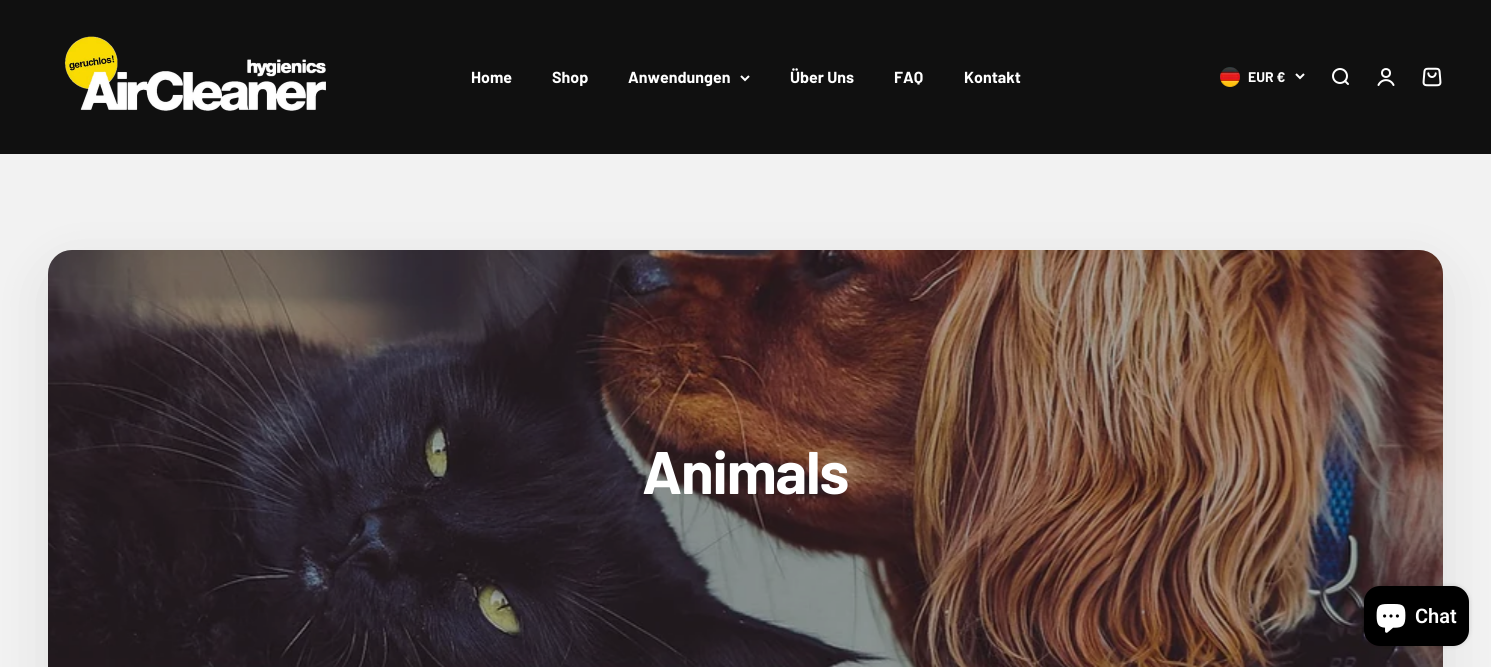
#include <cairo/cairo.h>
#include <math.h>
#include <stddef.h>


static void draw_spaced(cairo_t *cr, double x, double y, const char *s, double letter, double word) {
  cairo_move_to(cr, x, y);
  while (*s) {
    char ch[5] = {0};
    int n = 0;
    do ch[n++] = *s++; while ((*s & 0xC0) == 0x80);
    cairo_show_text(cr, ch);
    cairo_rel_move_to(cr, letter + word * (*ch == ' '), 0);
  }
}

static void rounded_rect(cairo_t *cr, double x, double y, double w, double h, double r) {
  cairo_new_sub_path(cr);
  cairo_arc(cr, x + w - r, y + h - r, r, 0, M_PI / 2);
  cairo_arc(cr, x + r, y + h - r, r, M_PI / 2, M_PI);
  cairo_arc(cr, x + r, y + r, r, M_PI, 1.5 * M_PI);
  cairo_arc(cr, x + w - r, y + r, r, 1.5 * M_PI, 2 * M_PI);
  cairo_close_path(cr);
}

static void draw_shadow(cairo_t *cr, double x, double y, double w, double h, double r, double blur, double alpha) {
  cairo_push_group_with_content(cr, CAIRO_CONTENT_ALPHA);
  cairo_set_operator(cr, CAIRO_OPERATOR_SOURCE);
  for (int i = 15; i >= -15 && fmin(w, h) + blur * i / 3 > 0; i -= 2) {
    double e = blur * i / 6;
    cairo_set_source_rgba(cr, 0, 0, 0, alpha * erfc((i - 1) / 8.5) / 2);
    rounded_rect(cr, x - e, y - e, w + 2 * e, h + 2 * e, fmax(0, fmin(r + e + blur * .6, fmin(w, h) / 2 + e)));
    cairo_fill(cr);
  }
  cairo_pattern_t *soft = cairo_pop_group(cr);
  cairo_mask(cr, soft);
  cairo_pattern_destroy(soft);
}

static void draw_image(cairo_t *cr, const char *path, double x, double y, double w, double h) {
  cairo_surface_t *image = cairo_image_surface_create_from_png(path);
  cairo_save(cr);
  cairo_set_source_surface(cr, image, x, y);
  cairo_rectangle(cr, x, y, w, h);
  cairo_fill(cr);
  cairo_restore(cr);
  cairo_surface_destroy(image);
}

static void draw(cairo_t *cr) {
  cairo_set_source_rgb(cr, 242 / 255.0, 242 / 255.0, 242 / 255.0);
  cairo_paint(cr);
  cairo_set_source_rgb(cr, 16 / 255.0, 16 / 255.0, 16 / 255.0);
  cairo_rectangle(cr, 0, 0, 1491, 154);
  cairo_fill(cr);
  draw_image(cr, "images/1.png", 64, 36, 262, 75);
  cairo_new_path(cr);
  cairo_move_to(cr, 741, 76);
  cairo_line_to(cr, 745, 80);
  cairo_line_to(cr, 749, 76);
  cairo_set_source_rgb(cr, 1, 1, 1);
  cairo_stroke(cr);
  draw_image(cr, "images/2.png", 1220, 67, 20, 20);
  cairo_new_path(cr);
  cairo_move_to(cr, 1296, 74);
  cairo_line_to(cr, 1300, 78);
  cairo_line_to(cr, 1304, 74);
  cairo_stroke(cr);
  draw_image(cr, "images/3.png", 1332, 68, 17, 17);
  cairo_arc(cr, 1386, 73, 4, 0, 2 * M_PI);
  cairo_stroke(cr);
  cairo_new_path(cr);
  cairo_move_to(cr, 1378.5, 85);
  cairo_curve_to(cr, 1381.5, 78.5, 1390.5, 78.5, 1393.5, 85);
  cairo_set_line_cap(cr, CAIRO_LINE_CAP_ROUND);
  cairo_stroke(cr);
  draw_image(cr, "images/4.png", 1422, 67, 20, 20);
  cairo_set_source_rgb(cr, 26 / 255.0, 26 / 255.0, 26 / 255.0);
  draw_shadow(cr, 48, 268, 1395, 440, 24, 25, 0.1);
  draw_image(cr, "images/5.png", 48, 250, 1395, 417);
  cairo_set_source_rgba(cr, 0, 0, 0, 0.3);
  rounded_rect(cr, 48, 250, 1395, 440, 24);
  cairo_fill(cr);
  cairo_set_source_rgb(cr, 0, 0, 0);
  draw_shadow(cr, 1364, 586, 105, 60, 16, 2.5, 0.15);
  cairo_set_source_rgb(cr, 0, 0, 0);
  rounded_rect(cr, 1364, 586, 105, 60, 16);
  cairo_fill(cr);
  draw_image(cr, "images/6.png", 1376, 604, 30, 29);
  cairo_select_font_face(cr, "Barlow", CAIRO_FONT_SLANT_NORMAL, CAIRO_FONT_WEIGHT_BOLD);
  cairo_set_font_size(cr, 16);
  cairo_set_source_rgb(cr, 1, 1, 1);
  cairo_move_to(cr, 471, 83);
  cairo_show_text(cr, "Home");
  cairo_move_to(cr, 552, 83);
  cairo_show_text(cr, "Shop");
  cairo_move_to(cr, 628, 83);
  cairo_show_text(cr, "Anwendungen");
  cairo_move_to(cr, 790, 83);
  cairo_show_text(cr, "Über Uns");
  cairo_move_to(cr, 894, 83);
  cairo_show_text(cr, "FAQ");
  cairo_move_to(cr, 964, 83);
  cairo_show_text(cr, "Kontakt");
  cairo_set_font_size(cr, 14);
  cairo_move_to(cr, 1248, 82);
  cairo_show_text(cr, "EUR €");
  cairo_set_font_size(cr, 60);
  draw_spaced(cr, 642, 494, "Animals", -1.25, 0);
  cairo_select_font_face(cr, "Roboto SemiBold", CAIRO_FONT_SLANT_NORMAL, CAIRO_FONT_WEIGHT_NORMAL);
  cairo_set_font_size(cr, 20);
  cairo_move_to(cr, 1415, 623);
  cairo_show_text(cr, "Chat");
}

int main(void) {
  cairo_surface_t *surface = cairo_image_surface_create(CAIRO_FORMAT_RGB24, 1491, 667);
  cairo_t *cr = cairo_create(surface);
  cairo_font_options_t *options = cairo_font_options_create();
  cairo_font_options_set_hint_metrics(options, CAIRO_HINT_METRICS_OFF);
  cairo_font_options_set_hint_style(options, CAIRO_HINT_STYLE_NONE);
  cairo_set_font_options(cr, options);
  cairo_set_miter_limit(cr, 4);
  draw(cr);
  cairo_surface_write_to_png(surface, "out.png");
  cairo_font_options_destroy(options);
  cairo_destroy(cr);
  cairo_surface_destroy(surface);
  return 0;
}
